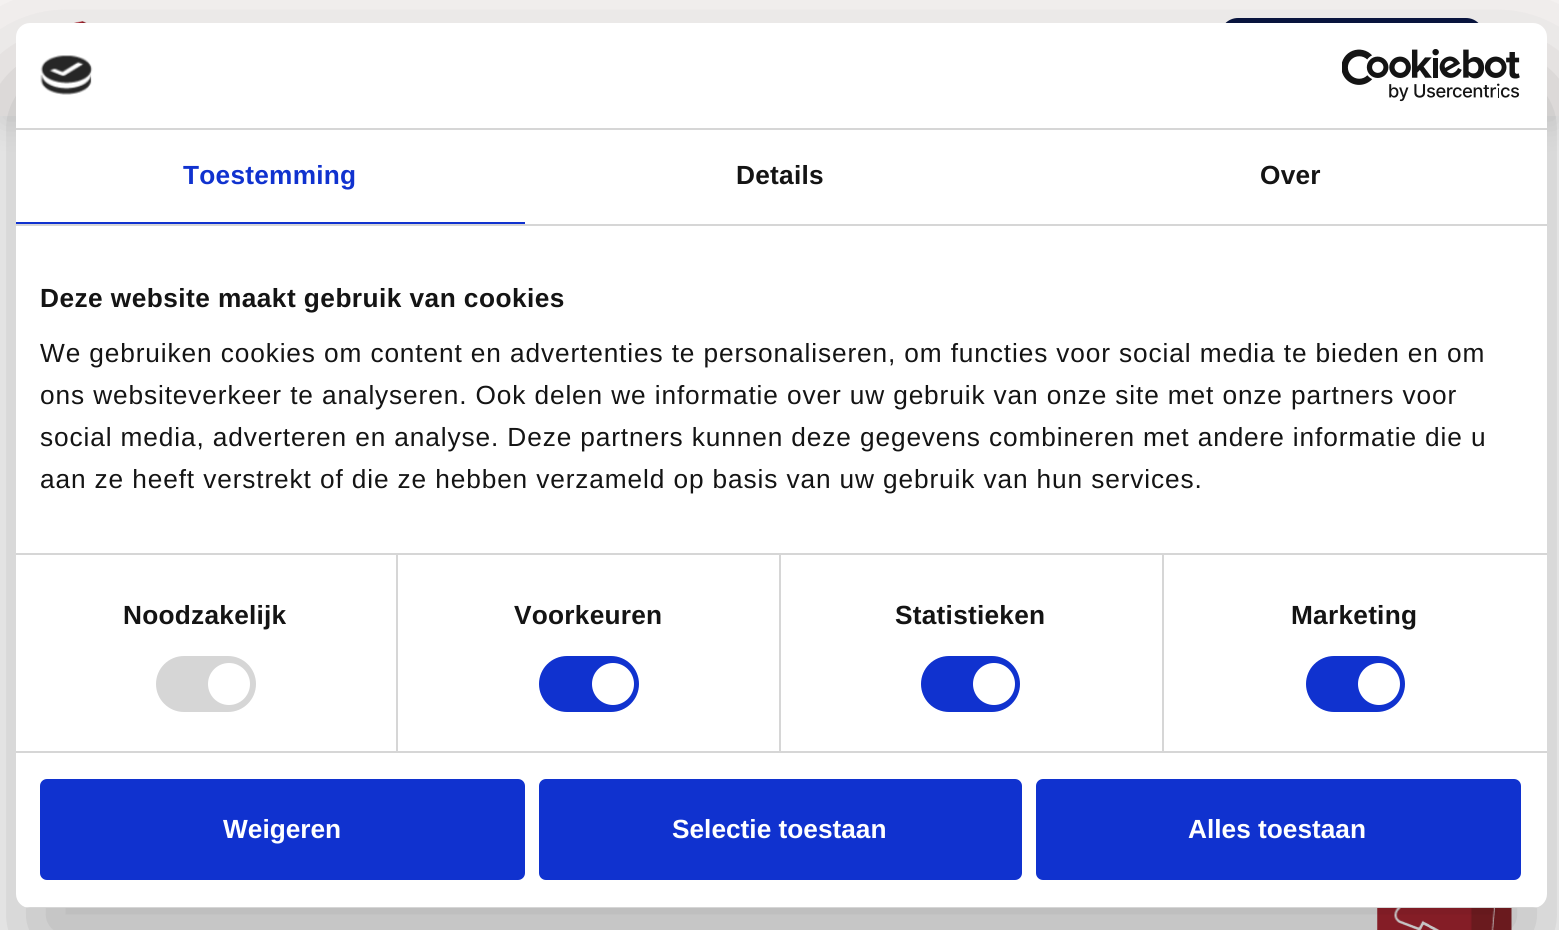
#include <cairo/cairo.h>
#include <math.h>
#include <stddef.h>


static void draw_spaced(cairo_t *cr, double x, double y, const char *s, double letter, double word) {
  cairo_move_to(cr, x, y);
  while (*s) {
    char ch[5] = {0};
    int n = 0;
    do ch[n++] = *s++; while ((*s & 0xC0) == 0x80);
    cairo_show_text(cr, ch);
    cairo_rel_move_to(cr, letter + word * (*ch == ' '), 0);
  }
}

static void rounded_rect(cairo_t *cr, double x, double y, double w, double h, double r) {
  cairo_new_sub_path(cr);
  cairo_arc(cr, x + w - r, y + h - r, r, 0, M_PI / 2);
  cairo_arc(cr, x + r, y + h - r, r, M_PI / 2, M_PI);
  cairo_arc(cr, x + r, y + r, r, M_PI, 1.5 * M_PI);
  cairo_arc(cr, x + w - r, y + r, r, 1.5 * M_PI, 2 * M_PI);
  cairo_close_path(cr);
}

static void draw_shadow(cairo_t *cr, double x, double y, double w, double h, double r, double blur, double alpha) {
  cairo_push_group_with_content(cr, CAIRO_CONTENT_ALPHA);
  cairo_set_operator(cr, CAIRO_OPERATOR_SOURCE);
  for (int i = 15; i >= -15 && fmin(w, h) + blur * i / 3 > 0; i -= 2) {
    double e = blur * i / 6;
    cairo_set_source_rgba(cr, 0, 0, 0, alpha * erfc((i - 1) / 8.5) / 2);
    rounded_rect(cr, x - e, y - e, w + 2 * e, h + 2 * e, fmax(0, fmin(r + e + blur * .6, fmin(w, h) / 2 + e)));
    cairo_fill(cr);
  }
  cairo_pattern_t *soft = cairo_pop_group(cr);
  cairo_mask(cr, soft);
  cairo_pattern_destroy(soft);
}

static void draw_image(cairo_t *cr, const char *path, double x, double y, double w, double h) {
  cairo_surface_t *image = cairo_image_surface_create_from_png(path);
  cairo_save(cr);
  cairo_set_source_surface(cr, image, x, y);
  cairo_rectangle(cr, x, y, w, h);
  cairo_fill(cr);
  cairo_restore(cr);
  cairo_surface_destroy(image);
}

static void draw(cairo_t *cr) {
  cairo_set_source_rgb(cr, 1, 1, 1);
  cairo_paint(cr);
  cairo_set_source_rgb(cr, 0, 0, 0);
  draw_shadow(cr, 0, 9, 1559, 115, 0, 15, 0.1);
  cairo_set_source_rgb(cr, 247 / 255.0, 244 / 255.0, 243 / 255.0);
  cairo_rectangle(cr, 0, 0, 1559, 116);
  cairo_fill(cr);
  draw_image(cr, "images/1.png", 74, 21, 13, 2);
  cairo_set_source_rgb(cr, 8 / 255.0, 21 / 255.0, 64 / 255.0);
  rounded_rect(cr, 1220, 18, 264, 73, 18);
  cairo_fill(cr);
  draw_image(cr, "images/4.png", 1377, 908, 135, 22);
  cairo_set_source_rgb(cr, 0, 0, 0);
  draw_shadow(cr, 16, 79, 1531, 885, 14, 59.5, 0.3);
  cairo_set_source_rgb(cr, 1, 1, 1);
  rounded_rect(cr, 16, 23, 1531, 885, 14);
  cairo_fill(cr);
  cairo_set_source_rgb(cr, 214 / 255.0, 214 / 255.0, 214 / 255.0);
  cairo_rectangle(cr, 16, 128, 1531, 2);
  cairo_fill(cr);
  draw_image(cr, "images/2.png", 40, 55, 53, 40);
  draw_image(cr, "images/3.png", 1342, 49, 178, 53);
  cairo_rectangle(cr, 16, 224, 1531, 2);
  cairo_fill(cr);
  cairo_set_source_rgb(cr, 16 / 255.0, 50 / 255.0, 207 / 255.0);
  cairo_rectangle(cr, 16, 222, 509, 2);
  cairo_fill(cr);
  cairo_set_source_rgb(cr, 214 / 255.0, 214 / 255.0, 214 / 255.0);
  cairo_rectangle(cr, 16, 553, 1531, 2);
  cairo_fill(cr);
  cairo_rectangle(cr, 16, 751, 1531, 2);
  cairo_fill(cr);
  cairo_rectangle(cr, 396, 555, 2, 196);
  cairo_fill(cr);
  rounded_rect(cr, 156, 656, 100, 56, 28);
  cairo_fill(cr);
  cairo_set_source_rgb(cr, 1, 1, 1);
  cairo_arc(cr, 229, 684, 21, 0, 2 * M_PI);
  cairo_fill(cr);
  cairo_set_source_rgb(cr, 214 / 255.0, 214 / 255.0, 214 / 255.0);
  cairo_rectangle(cr, 779, 555, 2, 196);
  cairo_fill(cr);
  cairo_set_source_rgb(cr, 16 / 255.0, 50 / 255.0, 207 / 255.0);
  rounded_rect(cr, 539, 656, 100, 56, 28);
  cairo_fill(cr);
  cairo_set_source_rgb(cr, 1, 1, 1);
  cairo_arc(cr, 613, 684, 21, 0, 2 * M_PI);
  cairo_fill(cr);
  cairo_set_source_rgb(cr, 214 / 255.0, 214 / 255.0, 214 / 255.0);
  cairo_rectangle(cr, 1162, 555, 2, 196);
  cairo_fill(cr);
  cairo_set_source_rgb(cr, 16 / 255.0, 50 / 255.0, 207 / 255.0);
  rounded_rect(cr, 921, 656, 99, 56, 28);
  cairo_fill(cr);
  cairo_set_source_rgb(cr, 1, 1, 1);
  cairo_arc(cr, 994, 684, 21, 0, 2 * M_PI);
  cairo_fill(cr);
  cairo_set_source_rgb(cr, 16 / 255.0, 50 / 255.0, 207 / 255.0);
  rounded_rect(cr, 1306, 656, 99, 56, 28);
  cairo_fill(cr);
  cairo_set_source_rgb(cr, 1, 1, 1);
  cairo_arc(cr, 1379, 684, 21, 0, 2 * M_PI);
  cairo_fill(cr);
  cairo_save(cr);
  rounded_rect(cr, 16, 23, 1531, 885, 14);
  cairo_clip(cr);
  cairo_set_source_rgb(cr, 214 / 255.0, 214 / 255.0, 214 / 255.0);
  cairo_rectangle(cr, 25, 907, 1513, 1);
  cairo_fill(cr);
  cairo_restore(cr);
  cairo_set_source_rgb(cr, 16 / 255.0, 50 / 255.0, 207 / 255.0);
  rounded_rect(cr, 42, 781, 481, 97, 5);
  cairo_fill_preserve(cr);
  cairo_set_line_width(cr, 4);
  cairo_stroke(cr);
  rounded_rect(cr, 541, 781, 479, 97, 5);
  cairo_fill_preserve(cr);
  cairo_stroke(cr);
  rounded_rect(cr, 1038, 781, 481, 97, 5);
  cairo_fill_preserve(cr);
  cairo_stroke(cr);
  cairo_select_font_face(cr, "Liberation Sans", CAIRO_FONT_SLANT_NORMAL, CAIRO_FONT_WEIGHT_BOLD);
  cairo_set_font_size(cr, 26.25);
  draw_spaced(cr, 183, 184, "Toestemming", 0.25, 0);
  cairo_set_source_rgb(cr, 20 / 255.0, 20 / 255.0, 20 / 255.0);
  draw_spaced(cr, 736, 184, "Details", 0.25, 0);
  draw_spaced(cr, 1260, 184, "Over", 0.25, 0);
  draw_spaced(cr, 40, 307, "Deze website maakt gebruik van cookies", 0.45, 0);
  cairo_select_font_face(cr, "Liberation Sans", CAIRO_FONT_SLANT_NORMAL, CAIRO_FONT_WEIGHT_NORMAL);
  draw_spaced(cr, 40, 362, "We gebruiken cookies om content en advertenties te personaliseren, om functies voor social media te bieden en om", 0.88, 0);
  draw_spaced(cr, 40, 404, "ons websiteverkeer te analyseren. Ook delen we informatie over uw gebruik van onze site met onze partners voor", 0.88, 0);
  draw_spaced(cr, 40, 446, "social media, adverteren en analyse. Deze partners kunnen deze gegevens combineren met andere informatie die u", 0.88, 0);
  draw_spaced(cr, 40, 488, "aan ze heeft verstrekt of die ze hebben verzameld op basis van uw gebruik van hun services.", 0.88, 0);
  cairo_select_font_face(cr, "Liberation Sans", CAIRO_FONT_SLANT_NORMAL, CAIRO_FONT_WEIGHT_BOLD);
  draw_spaced(cr, 123, 624, "Noodzakelijk", 0.25, 0);
  draw_spaced(cr, 514, 624, "Voorkeuren", 0.25, 0);
  draw_spaced(cr, 895, 624, "Statistieken", 0.25, 0);
  draw_spaced(cr, 1291, 624, "Marketing", 0.25, 0);
  cairo_set_source_rgb(cr, 1, 1, 1);
  cairo_move_to(cr, 223, 838);
  cairo_show_text(cr, "Weigeren");
  cairo_move_to(cr, 672, 838);
  cairo_show_text(cr, "Selectie toestaan");
  cairo_move_to(cr, 1188, 838);
  cairo_show_text(cr, "Alles toestaan");
}

int main(void) {
  cairo_surface_t *surface = cairo_image_surface_create(CAIRO_FORMAT_RGB24, 1559, 930);
  cairo_t *cr = cairo_create(surface);
  cairo_font_options_t *options = cairo_font_options_create();
  cairo_font_options_set_hint_metrics(options, CAIRO_HINT_METRICS_OFF);
  cairo_font_options_set_hint_style(options, CAIRO_HINT_STYLE_NONE);
  cairo_set_font_options(cr, options);
  cairo_set_miter_limit(cr, 4);
  draw(cr);
  cairo_surface_write_to_png(surface, "out.png");
  cairo_font_options_destroy(options);
  cairo_destroy(cr);
  cairo_surface_destroy(surface);
  return 0;
}
